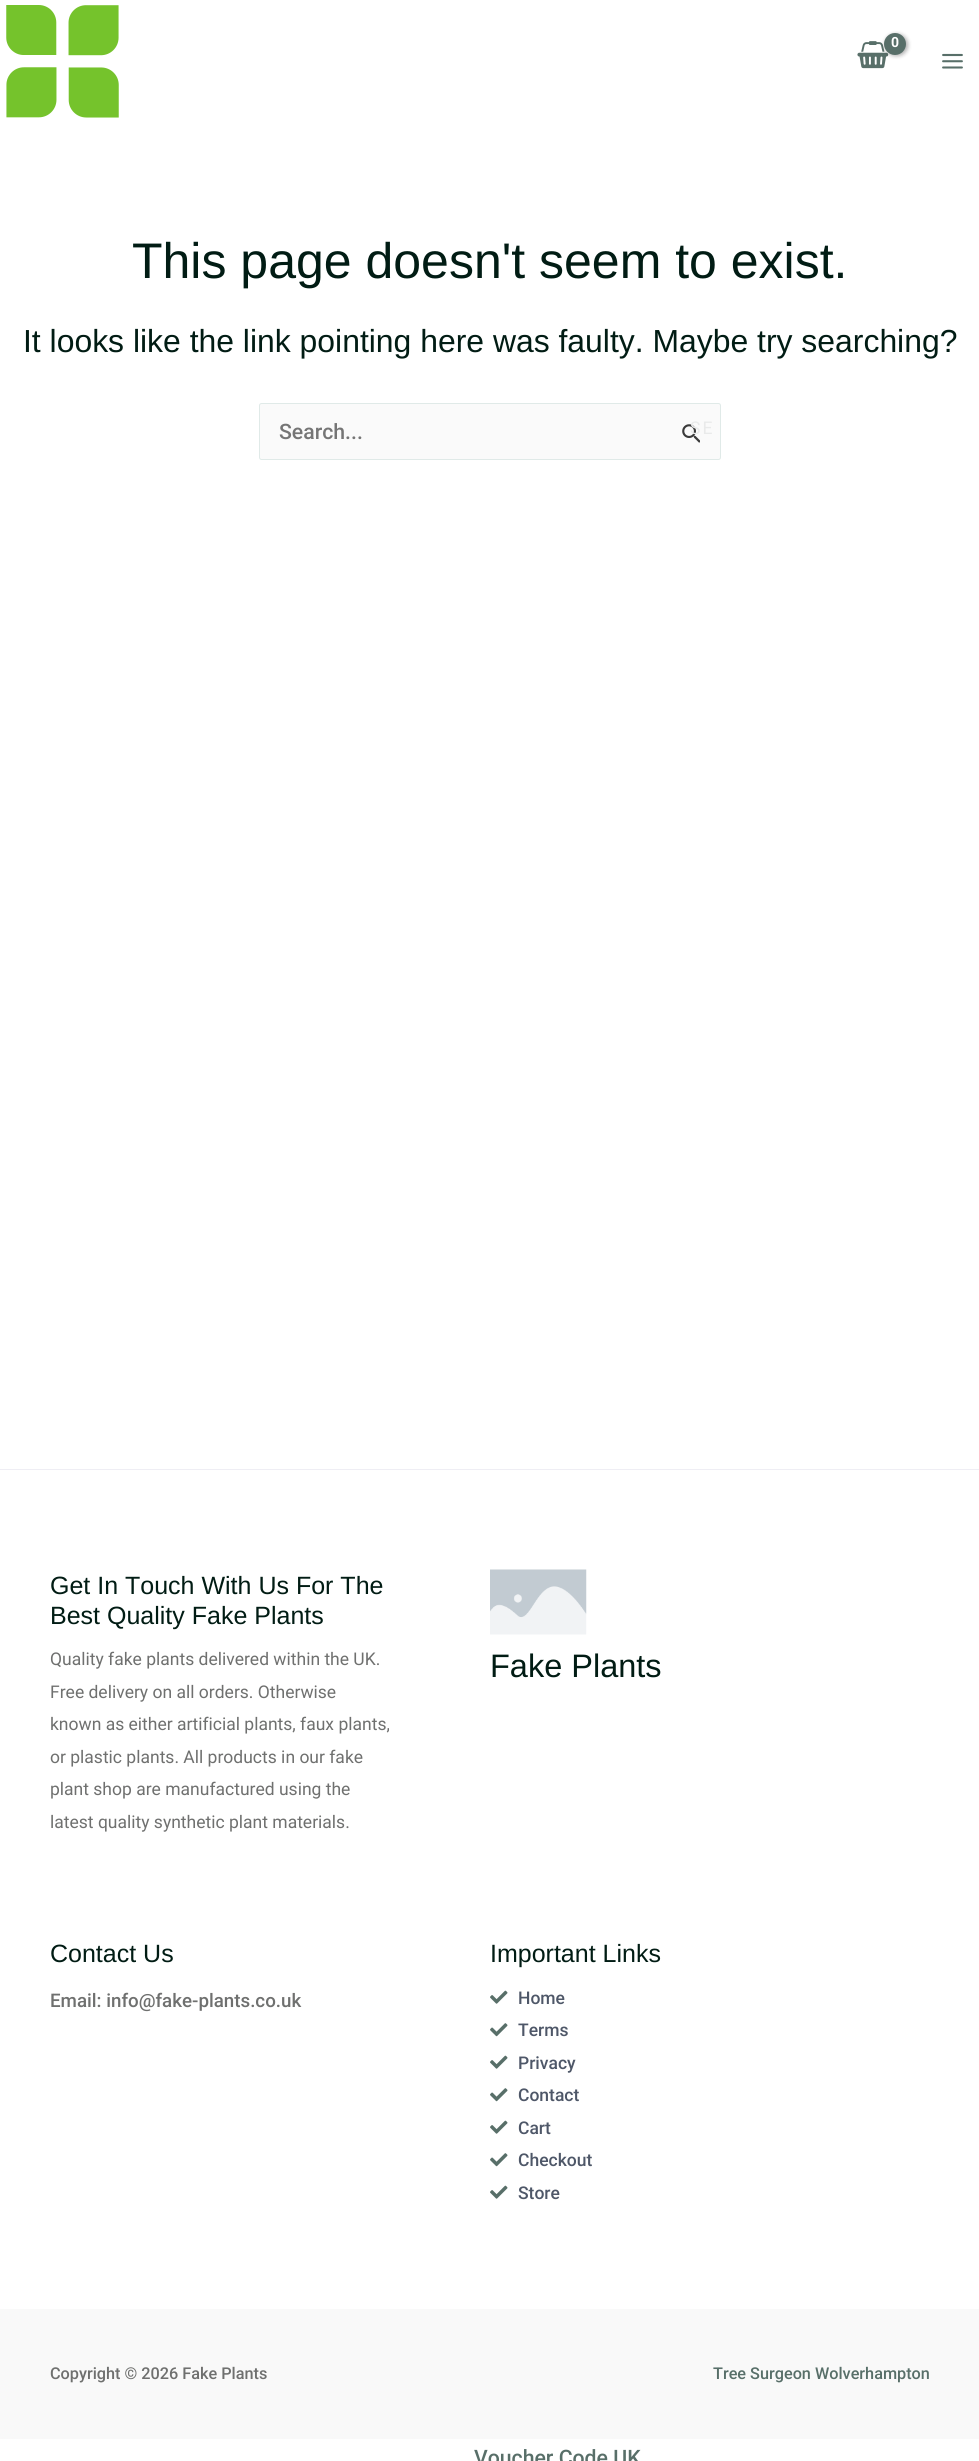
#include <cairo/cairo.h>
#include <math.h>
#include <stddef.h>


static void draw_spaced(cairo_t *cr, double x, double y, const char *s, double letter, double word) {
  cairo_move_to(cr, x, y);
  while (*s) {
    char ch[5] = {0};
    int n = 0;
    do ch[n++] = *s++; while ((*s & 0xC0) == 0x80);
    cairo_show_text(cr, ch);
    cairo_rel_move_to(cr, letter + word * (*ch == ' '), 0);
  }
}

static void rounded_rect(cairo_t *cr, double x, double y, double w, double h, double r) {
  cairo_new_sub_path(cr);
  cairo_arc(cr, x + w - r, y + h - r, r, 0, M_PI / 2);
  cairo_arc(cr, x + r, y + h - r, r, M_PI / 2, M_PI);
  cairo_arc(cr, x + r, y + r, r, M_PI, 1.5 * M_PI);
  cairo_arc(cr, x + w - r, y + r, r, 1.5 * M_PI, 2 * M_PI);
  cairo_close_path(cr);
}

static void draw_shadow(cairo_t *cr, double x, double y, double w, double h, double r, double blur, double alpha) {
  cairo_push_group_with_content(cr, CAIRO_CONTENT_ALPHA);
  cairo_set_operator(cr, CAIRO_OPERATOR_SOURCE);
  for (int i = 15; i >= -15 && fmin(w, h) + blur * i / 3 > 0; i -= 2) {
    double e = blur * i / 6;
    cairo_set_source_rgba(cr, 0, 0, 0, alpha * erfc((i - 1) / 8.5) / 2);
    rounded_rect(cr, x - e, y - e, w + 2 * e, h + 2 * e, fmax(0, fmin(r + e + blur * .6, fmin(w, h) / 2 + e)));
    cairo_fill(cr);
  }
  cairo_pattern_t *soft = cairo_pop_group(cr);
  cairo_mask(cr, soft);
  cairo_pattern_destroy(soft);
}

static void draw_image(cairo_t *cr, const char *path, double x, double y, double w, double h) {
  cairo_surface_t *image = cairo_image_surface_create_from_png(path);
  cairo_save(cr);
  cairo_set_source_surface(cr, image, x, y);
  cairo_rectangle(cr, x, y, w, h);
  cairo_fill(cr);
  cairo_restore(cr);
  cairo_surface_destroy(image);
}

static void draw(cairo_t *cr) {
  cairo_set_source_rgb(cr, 1, 1, 1);
  cairo_paint(cr);
  draw_image(cr, "images/1.png", 6, 5, 113, 113);
  draw_image(cr, "images/2.png", 857, 41, 32, 28);
  cairo_set_source_rgb(cr, 0, 0, 0);
  draw_shadow(cr, 885, 34, 23, 22, 11, 2, 0.3);
  cairo_set_source_rgb(cr, 88 / 255.0, 111 / 255.0, 105 / 255.0);
  cairo_arc(cr, 895, 44, 11, 0, 2 * M_PI);
  cairo_fill(cr);
  draw_image(cr, "images/3.png", 942, 53, 21, 16);
  cairo_set_source_rgb(cr, 250 / 255.0, 250 / 255.0, 250 / 255.0);
  rounded_rect(cr, 259.5, 403.5, 461, 56, 2);
  cairo_fill_preserve(cr);
  cairo_set_source_rgb(cr, 224 / 255.0, 234 / 255.0, 232 / 255.0);
  cairo_set_line_width(cr, 1);
  cairo_stroke(cr);
  draw_image(cr, "images/4.png", 682, 424, 18, 19);
  cairo_set_source_rgb(cr, 239 / 255.0, 238 / 255.0, 244 / 255.0);
  cairo_rectangle(cr, 0, 1469, 979, 1);
  cairo_fill(cr);
  draw_image(cr, "images/5.png", 490, 1569, 97, 66);
  draw_image(cr, "images/6.png", 490, 1990, 18, 14);
  draw_image(cr, "images/7.png", 490, 2023, 18, 14);
  draw_image(cr, "images/6.png", 490, 2055, 18, 14);
  draw_image(cr, "images/7.png", 490, 2088, 18, 14);
  draw_image(cr, "images/6.png", 490, 2120, 18, 14);
  draw_image(cr, "images/7.png", 490, 2153, 18, 14);
  draw_image(cr, "images/6.png", 490, 2185, 18, 14);
  cairo_set_source_rgb(cr, 249 / 255.0, 249 / 255.0, 249 / 255.0);
  cairo_rectangle(cr, 0, 2309, 979, 130);
  cairo_fill(cr);
  cairo_select_font_face(cr, "Roboto", CAIRO_FONT_SLANT_NORMAL, CAIRO_FONT_WEIGHT_BOLD);
  cairo_set_font_size(cr, 14);
  cairo_set_source_rgb(cr, 1, 1, 1);
  draw_spaced(cr, 891, 47, "0", -1, 0);
  cairo_select_font_face(cr, "Liberation Sans", CAIRO_FONT_SLANT_NORMAL, CAIRO_FONT_WEIGHT_NORMAL);
  cairo_set_font_size(cr, 50);
  cairo_set_source_rgb(cr, 1 / 255.0, 28 / 255.0, 20 / 255.0);
  cairo_move_to(cr, 132, 278);
  cairo_show_text(cr, "This page doesn't seem to exist.");
  cairo_set_font_size(cr, 31.9);
  cairo_move_to(cr, 23, 352);
  cairo_show_text(cr, "It looks like the link pointing here was faulty. Maybe try searching?");
  cairo_select_font_face(cr, "Roboto Medium", CAIRO_FONT_SLANT_NORMAL, CAIRO_FONT_WEIGHT_NORMAL);
  cairo_set_font_size(cr, 21.25);
  cairo_set_source_rgb(cr, 117 / 255.0, 117 / 255.0, 117 / 255.0);
  cairo_move_to(cr, 279, 439);
  cairo_show_text(cr, "Search...");
  cairo_select_font_face(cr, "Roboto", CAIRO_FONT_SLANT_NORMAL, CAIRO_FONT_WEIGHT_NORMAL);
  cairo_set_font_size(cr, 17.5);
  cairo_set_source_rgb(cr, 233 / 255.0, 234 / 255.0, 234 / 255.0);
  draw_spaced(cr, 690, 434, "SE", 2, 0);
  cairo_select_font_face(cr, "Liberation Sans", CAIRO_FONT_SLANT_NORMAL, CAIRO_FONT_WEIGHT_NORMAL);
  cairo_set_font_size(cr, 25);
  cairo_set_source_rgb(cr, 1 / 255.0, 28 / 255.0, 20 / 255.0);
  cairo_move_to(cr, 50, 1594);
  cairo_show_text(cr, "Get In Touch With Us For The");
  cairo_move_to(cr, 50, 1624);
  cairo_show_text(cr, "Best Quality Fake Plants");
  cairo_select_font_face(cr, "Roboto", CAIRO_FONT_SLANT_NORMAL, CAIRO_FONT_WEIGHT_NORMAL);
  cairo_set_font_size(cr, 17.5);
  cairo_set_source_rgb(cr, 111 / 255.0, 112 / 255.0, 111 / 255.0);
  cairo_move_to(cr, 50, 1665);
  cairo_show_text(cr, "Quality fake plants delivered within the UK.");
  cairo_move_to(cr, 50, 1698);
  cairo_show_text(cr, "Free delivery on all orders. Otherwise");
  cairo_move_to(cr, 50, 1730);
  cairo_show_text(cr, "known as either artificial plants, faux plants,");
  cairo_move_to(cr, 50, 1763);
  cairo_show_text(cr, "or plastic plants. All products in our fake");
  cairo_move_to(cr, 50, 1795);
  cairo_show_text(cr, "plant shop are manufactured using the");
  cairo_move_to(cr, 50, 1828);
  cairo_show_text(cr, "latest quality synthetic plant materials.");
  cairo_select_font_face(cr, "Liberation Sans", CAIRO_FONT_SLANT_NORMAL, CAIRO_FONT_WEIGHT_NORMAL);
  cairo_set_font_size(cr, 32.5);
  cairo_set_source_rgb(cr, 1 / 255.0, 28 / 255.0, 20 / 255.0);
  cairo_move_to(cr, 490, 1677);
  cairo_show_text(cr, "Fake Plants");
  cairo_set_font_size(cr, 25);
  cairo_move_to(cr, 50, 1962);
  cairo_show_text(cr, "Contact Us");
  cairo_select_font_face(cr, "Roboto Medium", CAIRO_FONT_SLANT_NORMAL, CAIRO_FONT_WEIGHT_NORMAL);
  cairo_set_font_size(cr, 18.75);
  cairo_set_source_rgb(cr, 111 / 255.0, 112 / 255.0, 111 / 255.0);
  cairo_move_to(cr, 50, 2007);
  cairo_show_text(cr, "Email: info@fake-plants.co.uk");
  cairo_select_font_face(cr, "Liberation Sans", CAIRO_FONT_SLANT_NORMAL, CAIRO_FONT_WEIGHT_NORMAL);
  cairo_set_font_size(cr, 25);
  cairo_set_source_rgb(cr, 1 / 255.0, 28 / 255.0, 20 / 255.0);
  cairo_move_to(cr, 490, 1962);
  cairo_show_text(cr, "Important Links");
  cairo_select_font_face(cr, "Roboto Medium", CAIRO_FONT_SLANT_NORMAL, CAIRO_FONT_WEIGHT_NORMAL);
  cairo_set_font_size(cr, 17.5);
  cairo_set_source_rgb(cr, 78 / 255.0, 87 / 255.0, 104 / 255.0);
  cairo_move_to(cr, 518, 2004);
  cairo_show_text(cr, "Home");
  cairo_move_to(cr, 518, 2036);
  cairo_show_text(cr, "Terms");
  cairo_move_to(cr, 518, 2069);
  cairo_show_text(cr, "Privacy");
  cairo_move_to(cr, 518, 2101);
  cairo_show_text(cr, "Contact");
  cairo_move_to(cr, 518, 2134);
  cairo_show_text(cr, "Cart");
  cairo_move_to(cr, 518, 2166);
  cairo_show_text(cr, "Checkout");
  cairo_move_to(cr, 518, 2199);
  cairo_show_text(cr, "Store");
  cairo_set_font_size(cr, 16.25);
  cairo_set_source_rgb(cr, 111 / 255.0, 112 / 255.0, 111 / 255.0);
  cairo_move_to(cr, 50, 2379);
  cairo_show_text(cr, "Copyright © 2026 Fake Plants");
  cairo_set_source_rgb(cr, 88 / 255.0, 111 / 255.0, 105 / 255.0);
  cairo_move_to(cr, 713, 2379);
  cairo_show_text(cr, "Tree Surgeon Wolverhampton");
  cairo_set_font_size(cr, 21.25);
  cairo_move_to(cr, 474, 2465);
  cairo_show_text(cr, "Voucher Code UK");
}

int main(void) {
  cairo_surface_t *surface = cairo_image_surface_create(CAIRO_FORMAT_RGB24, 979, 2461);
  cairo_t *cr = cairo_create(surface);
  cairo_font_options_t *options = cairo_font_options_create();
  cairo_font_options_set_hint_metrics(options, CAIRO_HINT_METRICS_OFF);
  cairo_font_options_set_hint_style(options, CAIRO_HINT_STYLE_NONE);
  cairo_set_font_options(cr, options);
  cairo_set_miter_limit(cr, 4);
  draw(cr);
  cairo_surface_write_to_png(surface, "out.png");
  cairo_font_options_destroy(options);
  cairo_destroy(cr);
  cairo_surface_destroy(surface);
  return 0;
}
